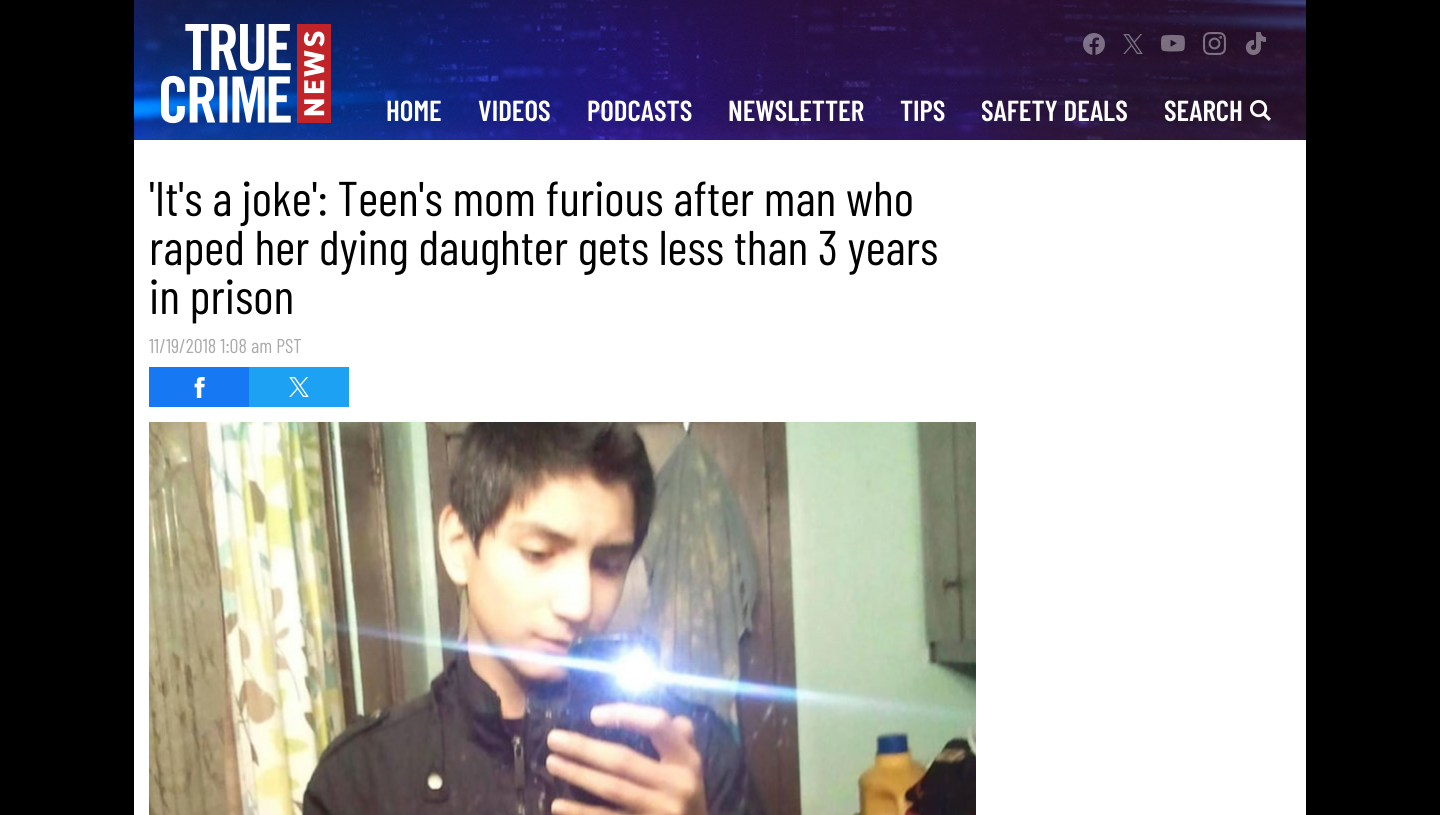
#include <cairo/cairo.h>
#include <math.h>
#include <stddef.h>


static void draw_image(cairo_t *cr, const char *path, double x, double y, double w, double h) {
  cairo_surface_t *image = cairo_image_surface_create_from_png(path);
  cairo_save(cr);
  cairo_set_source_surface(cr, image, x, y);
  cairo_rectangle(cr, x, y, w, h);
  cairo_fill(cr);
  cairo_restore(cr);
  cairo_surface_destroy(image);
}

static void draw(cairo_t *cr) {
  cairo_set_source_rgb(cr, 0, 0, 0);
  cairo_paint(cr);
  draw_image(cr, "images/1.png", 134, 0, 1172, 8);
  draw_image(cr, "images/2.png", 134, 8, 1172, 132);
  draw_image(cr, "images/3.png", 161, 24, 170, 100);
  draw_image(cr, "images/4.png", 1083, 33, 22, 22);
  draw_image(cr, "images/5.png", 1123, 34, 20, 20);
  draw_image(cr, "images/6.png", 1161, 35, 24, 17);
  draw_image(cr, "images/7.png", 1203, 32, 23, 23);
  draw_image(cr, "images/8.png", 1245, 32, 21, 23);
  draw_image(cr, "images/9.png", 1250, 100, 21, 21);
  cairo_set_source_rgb(cr, 1, 1, 1);
  cairo_rectangle(cr, 134, 140, 1172, 675);
  cairo_fill(cr);
  cairo_set_source_rgb(cr, 22 / 255.0, 120 / 255.0, 242 / 255.0);
  cairo_rectangle(cr, 149, 367, 100, 40);
  cairo_fill(cr);
  draw_image(cr, "images/10.png", 194, 377, 11, 21);
  cairo_set_source_rgb(cr, 29 / 255.0, 161 / 255.0, 242 / 255.0);
  cairo_rectangle(cr, 249, 367, 100, 40);
  cairo_fill(cr);
  draw_image(cr, "images/11.png", 289, 377, 20, 20);
  draw_image(cr, "images/12.png", 149, 422, 827, 393);
  cairo_select_font_face(cr, "Barlow Condensed SemiBold", CAIRO_FONT_SLANT_NORMAL, CAIRO_FONT_WEIGHT_NORMAL);
  cairo_set_font_size(cr, 29);
  cairo_set_source_rgb(cr, 1, 1, 1);
  cairo_move_to(cr, 386, 121);
  cairo_show_text(cr, "HOME");
  cairo_move_to(cr, 478, 121);
  cairo_show_text(cr, "VIDEOS");
  cairo_move_to(cr, 587, 121);
  cairo_show_text(cr, "PODCASTS");
  cairo_move_to(cr, 728, 121);
  cairo_show_text(cr, "NEWSLETTER");
  cairo_move_to(cr, 900, 121);
  cairo_show_text(cr, "TIPS");
  cairo_move_to(cr, 981, 121);
  cairo_show_text(cr, "SAFETY DEALS");
  cairo_move_to(cr, 1164, 121);
  cairo_show_text(cr, "SEARCH");
  cairo_select_font_face(cr, "Barlow Condensed", CAIRO_FONT_SLANT_NORMAL, CAIRO_FONT_WEIGHT_NORMAL);
  cairo_set_font_size(cr, 48.8);
  cairo_set_source_rgb(cr, 0, 0, 0);
  cairo_move_to(cr, 149, 216);
  cairo_show_text(cr, "'It's a joke': Teen's mom furious after man who");
  cairo_move_to(cr, 149, 265);
  cairo_show_text(cr, "raped her dying daughter gets less than 3 years");
  cairo_move_to(cr, 149, 314);
  cairo_show_text(cr, "in prison");
  cairo_set_font_size(cr, 20);
  cairo_set_source_rgb(cr, 170 / 255.0, 170 / 255.0, 170 / 255.0);
  cairo_move_to(cr, 149, 353);
  cairo_show_text(cr, "11/19/2018 1:08 am PST");
}

int main(void) {
  cairo_surface_t *surface = cairo_image_surface_create(CAIRO_FORMAT_RGB24, 1440, 815);
  cairo_t *cr = cairo_create(surface);
  cairo_font_options_t *options = cairo_font_options_create();
  cairo_font_options_set_hint_metrics(options, CAIRO_HINT_METRICS_OFF);
  cairo_font_options_set_hint_style(options, CAIRO_HINT_STYLE_NONE);
  cairo_set_font_options(cr, options);
  cairo_set_miter_limit(cr, 4);
  draw(cr);
  cairo_surface_write_to_png(surface, "out.png");
  cairo_font_options_destroy(options);
  cairo_destroy(cr);
  cairo_surface_destroy(surface);
  return 0;
}
